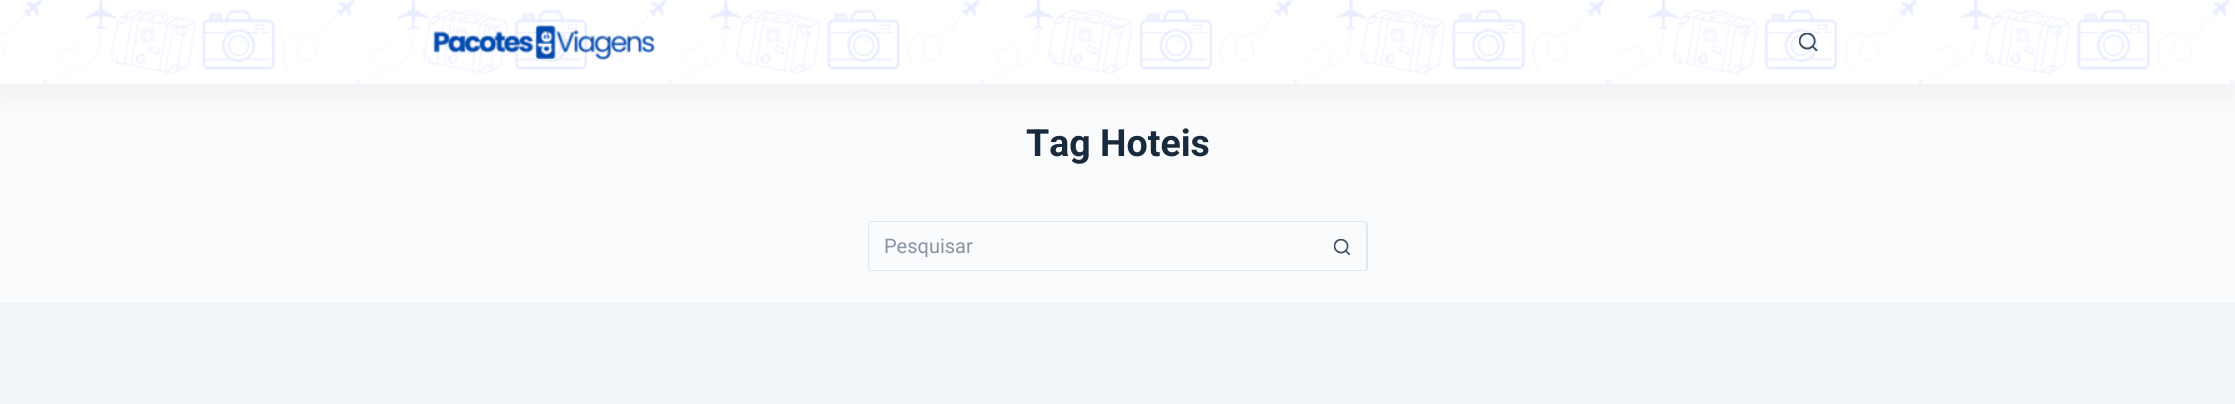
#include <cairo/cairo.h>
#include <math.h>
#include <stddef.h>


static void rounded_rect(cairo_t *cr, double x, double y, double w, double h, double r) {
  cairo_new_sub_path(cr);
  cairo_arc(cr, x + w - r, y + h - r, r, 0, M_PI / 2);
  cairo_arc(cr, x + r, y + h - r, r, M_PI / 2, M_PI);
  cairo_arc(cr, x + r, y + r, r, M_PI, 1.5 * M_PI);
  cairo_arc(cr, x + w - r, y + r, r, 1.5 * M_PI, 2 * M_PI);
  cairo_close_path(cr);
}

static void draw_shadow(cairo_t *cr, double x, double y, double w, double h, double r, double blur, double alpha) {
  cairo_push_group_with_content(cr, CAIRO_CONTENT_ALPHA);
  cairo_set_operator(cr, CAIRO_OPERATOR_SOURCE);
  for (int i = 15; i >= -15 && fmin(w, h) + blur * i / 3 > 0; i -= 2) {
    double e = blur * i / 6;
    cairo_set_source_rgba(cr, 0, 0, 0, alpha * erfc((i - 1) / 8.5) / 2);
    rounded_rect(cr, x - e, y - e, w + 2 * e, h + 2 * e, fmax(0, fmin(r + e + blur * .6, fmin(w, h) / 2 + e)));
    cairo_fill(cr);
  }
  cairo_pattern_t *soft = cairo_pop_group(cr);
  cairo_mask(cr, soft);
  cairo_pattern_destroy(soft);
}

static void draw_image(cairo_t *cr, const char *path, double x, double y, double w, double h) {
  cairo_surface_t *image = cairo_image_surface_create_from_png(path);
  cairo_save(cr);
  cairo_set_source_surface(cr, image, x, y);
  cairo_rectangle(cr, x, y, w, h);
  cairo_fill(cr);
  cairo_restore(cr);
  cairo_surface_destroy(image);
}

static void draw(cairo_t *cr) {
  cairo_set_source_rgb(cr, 250 / 255.0, 251 / 255.0, 252 / 255.0);
  cairo_paint(cr);
  cairo_set_source_rgb(cr, 44 / 255.0, 62 / 255.0, 80 / 255.0);
  draw_shadow(cr, 0, 13, 2235, 83, 0, 12.5, 0.05);
  cairo_set_source_rgb(cr, 1, 1, 1);
  cairo_rectangle(cr, 0, 0, 2235, 84);
  cairo_fill(cr);
  draw_image(cr, "images/1.png", 0, 0, 2235, 84);
  draw_image(cr, "images/2.png", 433, 25, 223, 36);
  draw_image(cr, "images/3.png", 1799, 33, 19, 18);
  cairo_set_source_rgb(cr, 225 / 255.0, 232 / 255.0, 237 / 255.0);
  cairo_set_fill_rule(cr, CAIRO_FILL_RULE_EVEN_ODD);
  cairo_new_path(cr);
  cairo_move_to(cr, 871, 221);
  cairo_line_to(cr, 1318, 221);
  cairo_line_to(cr, 1318, 271);
  cairo_line_to(cr, 871, 271);
  cairo_curve_to(cr, 869, 271, 868, 270, 868, 268);
  cairo_line_to(cr, 868, 225);
  cairo_curve_to(cr, 868, 223, 869, 221, 871, 221);
  cairo_close_path(cr);
  cairo_move_to(cr, 871, 222);
  cairo_line_to(cr, 1318, 222);
  cairo_line_to(cr, 1318, 270);
  cairo_line_to(cr, 871, 270);
  cairo_curve_to(cr, 870, 270, 869, 269, 869, 268);
  cairo_line_to(cr, 869, 225);
  cairo_curve_to(cr, 869, 224, 870, 222, 871, 222);
  cairo_close_path(cr);
  cairo_fill(cr);
  cairo_new_path(cr);
  cairo_move_to(cr, 1318, 221);
  cairo_line_to(cr, 1364, 221);
  cairo_curve_to(cr, 1366, 221, 1368, 223, 1368, 225);
  cairo_line_to(cr, 1368, 268);
  cairo_curve_to(cr, 1368, 270, 1366, 271, 1364, 271);
  cairo_line_to(cr, 1318, 271);
  cairo_close_path(cr);
  cairo_move_to(cr, 1318, 222);
  cairo_line_to(cr, 1364, 222);
  cairo_curve_to(cr, 1365, 222, 1366, 224, 1366, 225);
  cairo_line_to(cr, 1366, 268);
  cairo_curve_to(cr, 1366, 269, 1365, 270, 1364, 270);
  cairo_line_to(cr, 1318, 270);
  cairo_close_path(cr);
  cairo_fill(cr);
  draw_image(cr, "images/4.png", 1334, 239, 16, 16);
  cairo_set_source_rgb(cr, 242 / 255.0, 245 / 255.0, 247 / 255.0);
  cairo_rectangle(cr, 0, 303, 2235, 101);
  cairo_fill(cr);
  cairo_select_font_face(cr, "Roboto", CAIRO_FONT_SLANT_NORMAL, CAIRO_FONT_WEIGHT_BOLD);
  cairo_set_font_size(cr, 37.5);
  cairo_set_source_rgb(cr, 25 / 255.0, 42 / 255.0, 61 / 255.0);
  cairo_move_to(cr, 1026, 156);
  cairo_show_text(cr, "Tag Hoteis");
  cairo_select_font_face(cr, "Roboto", CAIRO_FONT_SLANT_NORMAL, CAIRO_FONT_WEIGHT_NORMAL);
  cairo_set_font_size(cr, 20);
  cairo_set_source_rgb(cr, 135 / 255.0, 148 / 255.0, 162 / 255.0);
  cairo_move_to(cr, 884, 253);
  cairo_show_text(cr, "Pesquisar");
}

int main(void) {
  cairo_surface_t *surface = cairo_image_surface_create(CAIRO_FORMAT_RGB24, 2235, 404);
  cairo_t *cr = cairo_create(surface);
  cairo_font_options_t *options = cairo_font_options_create();
  cairo_font_options_set_hint_metrics(options, CAIRO_HINT_METRICS_OFF);
  cairo_font_options_set_hint_style(options, CAIRO_HINT_STYLE_NONE);
  cairo_set_font_options(cr, options);
  cairo_set_miter_limit(cr, 4);
  draw(cr);
  cairo_surface_write_to_png(surface, "out.png");
  cairo_font_options_destroy(options);
  cairo_destroy(cr);
  cairo_surface_destroy(surface);
  return 0;
}
